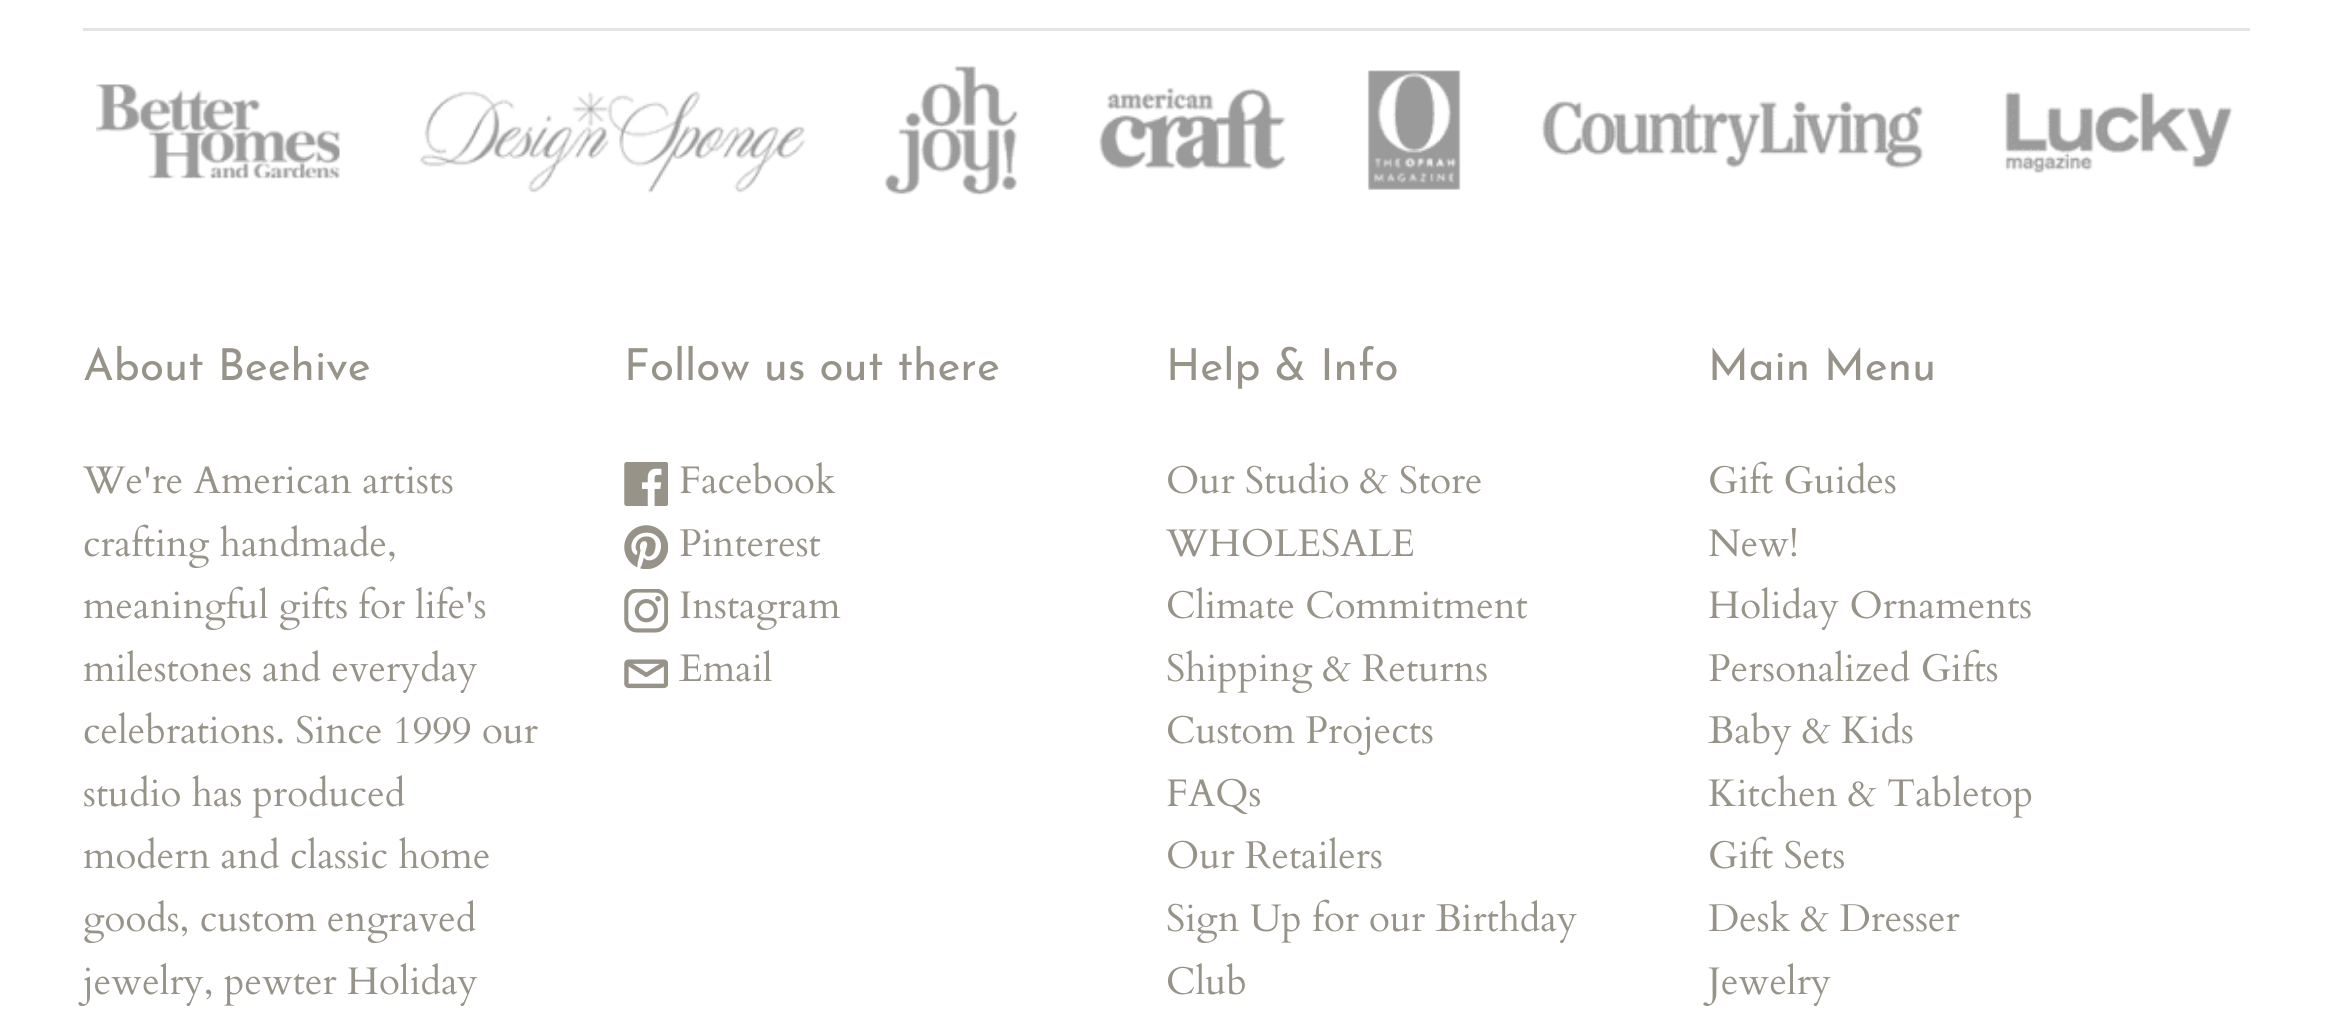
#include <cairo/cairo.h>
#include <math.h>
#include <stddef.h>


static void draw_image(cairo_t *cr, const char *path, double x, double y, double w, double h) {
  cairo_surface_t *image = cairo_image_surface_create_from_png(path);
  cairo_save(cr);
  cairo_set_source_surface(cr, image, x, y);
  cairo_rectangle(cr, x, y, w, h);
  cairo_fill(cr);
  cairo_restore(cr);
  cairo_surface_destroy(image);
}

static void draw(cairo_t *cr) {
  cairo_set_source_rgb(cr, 1, 1, 1);
  cairo_paint(cr);
  cairo_set_source_rgb(cr, 228 / 255.0, 228 / 255.0, 228 / 255.0);
  cairo_rectangle(cr, 83, 28, 2167, 3);
  cairo_fill(cr);
  draw_image(cr, "images/1.png", 96, 65, 2137, 131);
  draw_image(cr, "images/2.png", 624, 462, 44, 44);
  draw_image(cr, "images/3.png", 624, 525, 44, 44);
  draw_image(cr, "images/4.png", 624, 589, 44, 44);
  draw_image(cr, "images/5.png", 624, 659, 44, 30);
  cairo_select_font_face(cr, "Josefin Sans Thin", CAIRO_FONT_SLANT_NORMAL, CAIRO_FONT_WEIGHT_NORMAL);
  cairo_set_font_size(cr, 44);
  cairo_set_source_rgb(cr, 151 / 255.0, 147 / 255.0, 136 / 255.0);
  cairo_move_to(cr, 83, 380);
  cairo_show_text(cr, "About Beehive");
  cairo_select_font_face(cr, "Cardo", CAIRO_FONT_SLANT_NORMAL, CAIRO_FONT_WEIGHT_NORMAL);
  cairo_set_font_size(cr, 38.5);
  cairo_move_to(cr, 83, 493);
  cairo_show_text(cr, "We're American artists");
  cairo_move_to(cr, 83, 556);
  cairo_show_text(cr, "crafting handmade,");
  cairo_move_to(cr, 83, 618);
  cairo_show_text(cr, "meaningful gifts for life's");
  cairo_move_to(cr, 83, 681);
  cairo_show_text(cr, "milestones and everyday");
  cairo_move_to(cr, 83, 743);
  cairo_show_text(cr, "celebrations. Since 1999 our");
  cairo_move_to(cr, 83, 806);
  cairo_show_text(cr, "studio has produced");
  cairo_move_to(cr, 83, 868);
  cairo_show_text(cr, "modern and classic home");
  cairo_move_to(cr, 83, 931);
  cairo_show_text(cr, "goods, custom engraved");
  cairo_move_to(cr, 83, 994);
  cairo_show_text(cr, "jewelry, pewter Holiday");
  cairo_select_font_face(cr, "Josefin Sans Thin", CAIRO_FONT_SLANT_NORMAL, CAIRO_FONT_WEIGHT_NORMAL);
  cairo_set_font_size(cr, 44);
  cairo_move_to(cr, 624, 380);
  cairo_show_text(cr, "Follow us out there");
  cairo_select_font_face(cr, "Cardo", CAIRO_FONT_SLANT_NORMAL, CAIRO_FONT_WEIGHT_NORMAL);
  cairo_set_font_size(cr, 38.5);
  cairo_move_to(cr, 679, 493);
  cairo_show_text(cr, "Facebook");
  cairo_move_to(cr, 679, 556);
  cairo_show_text(cr, "Pinterest");
  cairo_move_to(cr, 679, 618);
  cairo_show_text(cr, "Instagram");
  cairo_move_to(cr, 679, 681);
  cairo_show_text(cr, "Email");
  cairo_select_font_face(cr, "Josefin Sans Thin", CAIRO_FONT_SLANT_NORMAL, CAIRO_FONT_WEIGHT_NORMAL);
  cairo_set_font_size(cr, 44);
  cairo_move_to(cr, 1166, 380);
  cairo_show_text(cr, "Help & Info");
  cairo_select_font_face(cr, "Cardo", CAIRO_FONT_SLANT_NORMAL, CAIRO_FONT_WEIGHT_NORMAL);
  cairo_set_font_size(cr, 38.5);
  cairo_move_to(cr, 1166, 493);
  cairo_show_text(cr, "Our Studio & Store");
  cairo_move_to(cr, 1166, 556);
  cairo_show_text(cr, "WHOLESALE");
  cairo_move_to(cr, 1166, 618);
  cairo_show_text(cr, "Climate Commitment");
  cairo_move_to(cr, 1166, 681);
  cairo_show_text(cr, "Shipping & Returns");
  cairo_move_to(cr, 1166, 743);
  cairo_show_text(cr, "Custom Projects");
  cairo_move_to(cr, 1166, 806);
  cairo_show_text(cr, "FAQs");
  cairo_move_to(cr, 1166, 868);
  cairo_show_text(cr, "Our Retailers");
  cairo_move_to(cr, 1166, 931);
  cairo_show_text(cr, "Sign Up for our Birthday");
  cairo_move_to(cr, 1166, 994);
  cairo_show_text(cr, "Club");
  cairo_select_font_face(cr, "Josefin Sans Thin", CAIRO_FONT_SLANT_NORMAL, CAIRO_FONT_WEIGHT_NORMAL);
  cairo_set_font_size(cr, 44);
  cairo_move_to(cr, 1708, 380);
  cairo_show_text(cr, "Main Menu");
  cairo_select_font_face(cr, "Cardo", CAIRO_FONT_SLANT_NORMAL, CAIRO_FONT_WEIGHT_NORMAL);
  cairo_set_font_size(cr, 38.5);
  cairo_move_to(cr, 1708, 493);
  cairo_show_text(cr, "Gift Guides");
  cairo_move_to(cr, 1708, 556);
  cairo_show_text(cr, "New!");
  cairo_move_to(cr, 1708, 618);
  cairo_show_text(cr, "Holiday Ornaments");
  cairo_move_to(cr, 1708, 681);
  cairo_show_text(cr, "Personalized Gifts");
  cairo_move_to(cr, 1708, 743);
  cairo_show_text(cr, "Baby & Kids");
  cairo_move_to(cr, 1708, 806);
  cairo_show_text(cr, "Kitchen & Tabletop");
  cairo_move_to(cr, 1708, 868);
  cairo_show_text(cr, "Gift Sets");
  cairo_move_to(cr, 1708, 931);
  cairo_show_text(cr, "Desk & Dresser");
  cairo_move_to(cr, 1708, 994);
  cairo_show_text(cr, "Jewelry");
}

int main(void) {
  cairo_surface_t *surface = cairo_image_surface_create(CAIRO_FORMAT_RGB24, 2332, 1026);
  cairo_t *cr = cairo_create(surface);
  cairo_font_options_t *options = cairo_font_options_create();
  cairo_font_options_set_hint_metrics(options, CAIRO_HINT_METRICS_OFF);
  cairo_font_options_set_hint_style(options, CAIRO_HINT_STYLE_NONE);
  cairo_set_font_options(cr, options);
  cairo_set_miter_limit(cr, 4);
  draw(cr);
  cairo_surface_write_to_png(surface, "out.png");
  cairo_font_options_destroy(options);
  cairo_destroy(cr);
  cairo_surface_destroy(surface);
  return 0;
}
